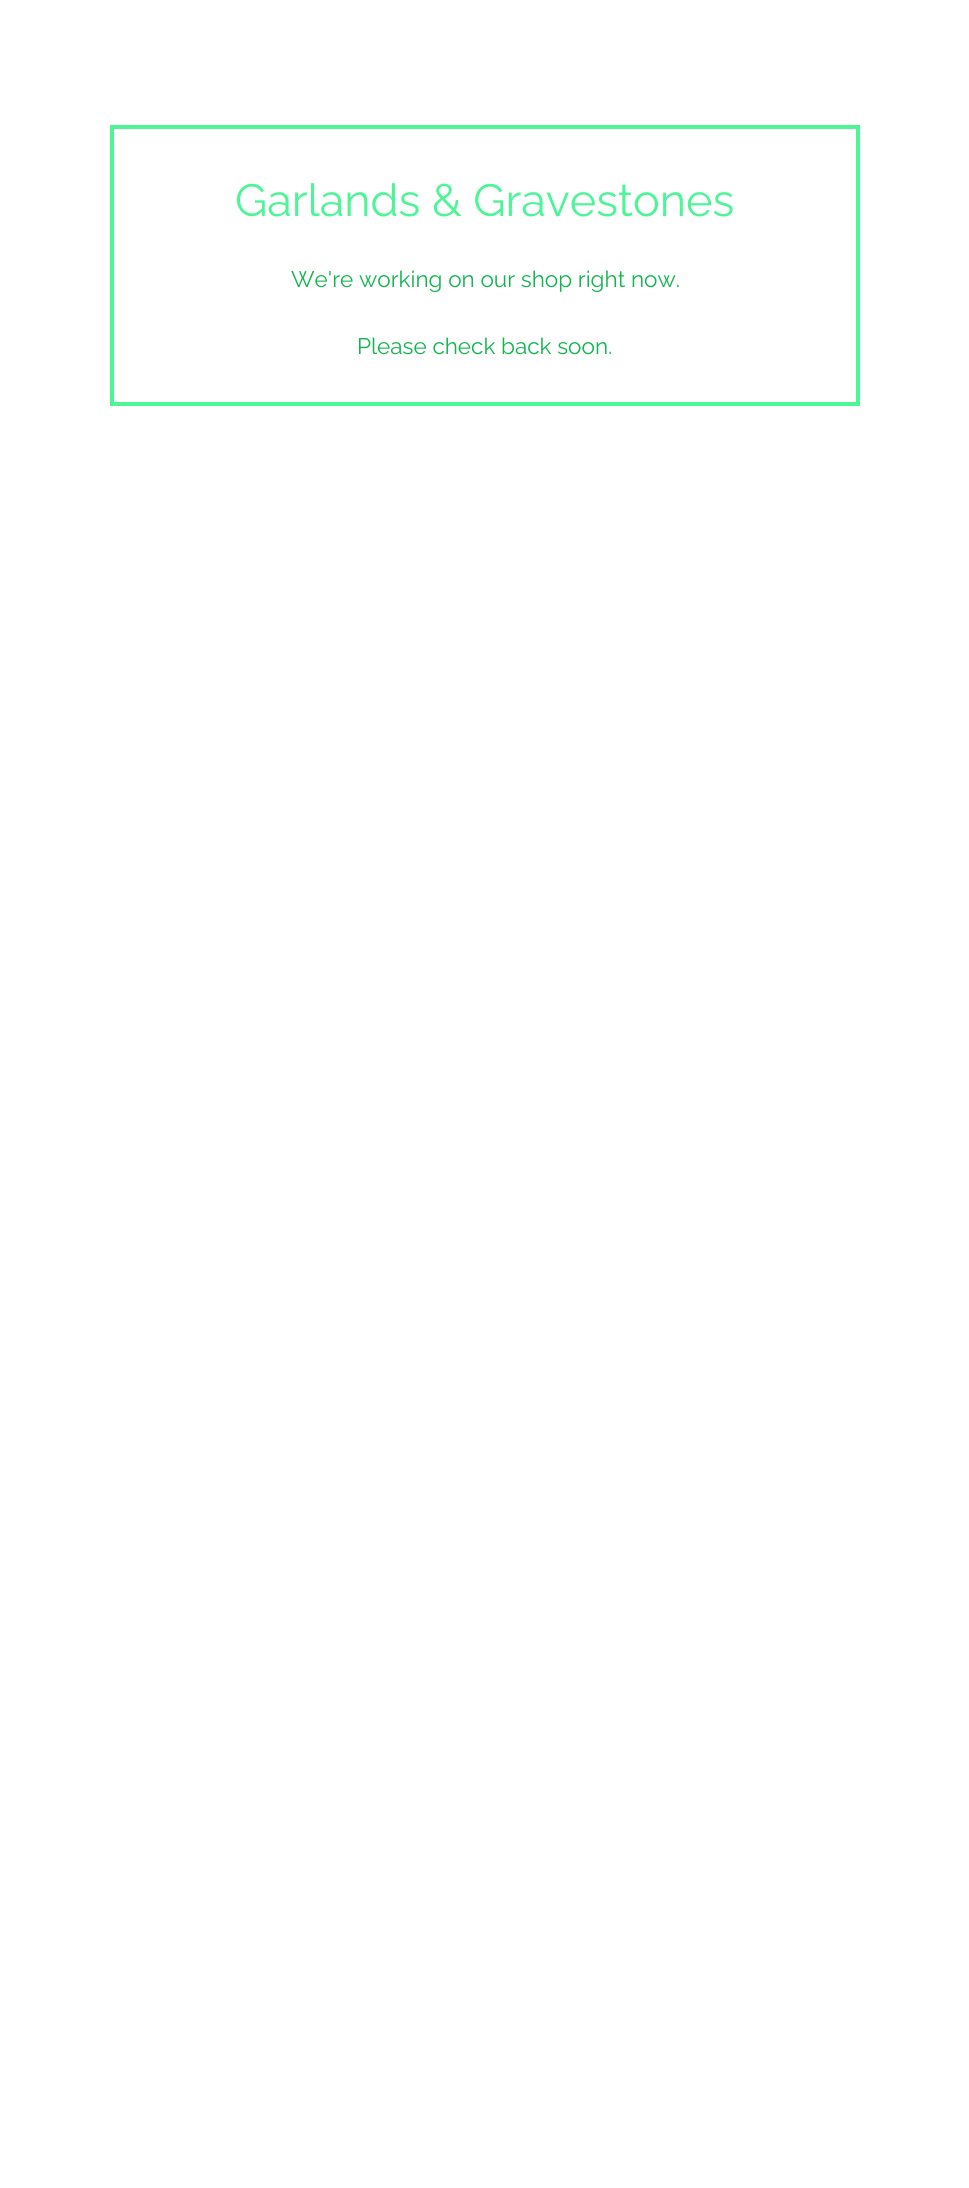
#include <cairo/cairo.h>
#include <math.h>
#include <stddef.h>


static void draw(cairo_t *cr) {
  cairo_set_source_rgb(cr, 1, 1, 1);
  cairo_paint(cr);
  cairo_rectangle(cr, 112, 127, 746, 277);
  cairo_set_source_rgb(cr, 76 / 255.0, 245 / 255.0, 150 / 255.0);
  cairo_set_line_width(cr, 4);
  cairo_stroke(cr);
  cairo_select_font_face(cr, "Raleway", CAIRO_FONT_SLANT_NORMAL, CAIRO_FONT_WEIGHT_NORMAL);
  cairo_set_font_size(cr, 45);
  cairo_move_to(cr, 235, 216);
  cairo_show_text(cr, "Garlands & Gravestones");
  cairo_set_font_size(cr, 22.5);
  cairo_set_source_rgb(cr, 17 / 255.0, 181 / 255.0, 78 / 255.0);
  cairo_move_to(cr, 291, 287);
  cairo_show_text(cr, "We're working on our shop right now.");
  cairo_move_to(cr, 357, 354);
  cairo_show_text(cr, "Please check back soon.");
}

int main(void) {
  cairo_surface_t *surface = cairo_image_surface_create(CAIRO_FORMAT_RGB24, 969, 2188);
  cairo_t *cr = cairo_create(surface);
  cairo_font_options_t *options = cairo_font_options_create();
  cairo_font_options_set_hint_metrics(options, CAIRO_HINT_METRICS_OFF);
  cairo_font_options_set_hint_style(options, CAIRO_HINT_STYLE_NONE);
  cairo_set_font_options(cr, options);
  cairo_set_miter_limit(cr, 4);
  draw(cr);
  cairo_surface_write_to_png(surface, "out.png");
  cairo_font_options_destroy(options);
  cairo_destroy(cr);
  cairo_surface_destroy(surface);
  return 0;
}
